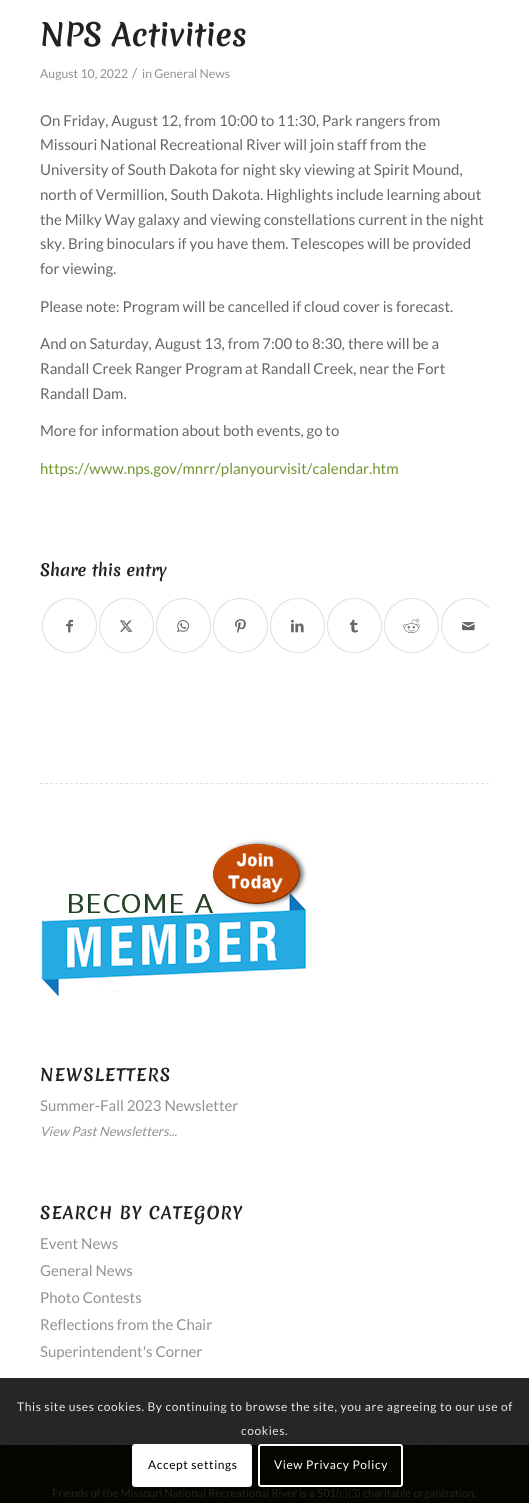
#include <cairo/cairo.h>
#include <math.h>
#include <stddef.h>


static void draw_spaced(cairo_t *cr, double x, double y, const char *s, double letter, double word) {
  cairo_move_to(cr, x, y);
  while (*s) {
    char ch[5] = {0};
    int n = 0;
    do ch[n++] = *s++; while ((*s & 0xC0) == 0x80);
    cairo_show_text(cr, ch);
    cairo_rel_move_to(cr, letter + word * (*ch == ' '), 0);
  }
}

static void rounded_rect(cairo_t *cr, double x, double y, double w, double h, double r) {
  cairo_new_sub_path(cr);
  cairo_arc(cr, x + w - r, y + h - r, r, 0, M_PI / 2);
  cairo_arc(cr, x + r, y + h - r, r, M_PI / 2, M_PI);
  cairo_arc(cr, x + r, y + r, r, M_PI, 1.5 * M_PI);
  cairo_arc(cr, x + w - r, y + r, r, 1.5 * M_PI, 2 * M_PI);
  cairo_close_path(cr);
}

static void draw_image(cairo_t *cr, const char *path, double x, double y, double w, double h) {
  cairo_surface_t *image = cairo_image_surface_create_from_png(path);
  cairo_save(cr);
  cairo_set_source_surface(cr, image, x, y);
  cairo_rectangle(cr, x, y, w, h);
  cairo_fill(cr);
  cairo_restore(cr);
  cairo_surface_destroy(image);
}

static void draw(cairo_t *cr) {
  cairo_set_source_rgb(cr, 6 / 255.0, 4 / 255.0, 0);
  cairo_paint(cr);
  cairo_set_source_rgb(cr, 1, 1, 1);
  cairo_rectangle(cr, 0, 0, 529, 1378);
  cairo_fill(cr);
  cairo_set_source_rgb(cr, 38 / 255.0, 38 / 255.0, 38 / 255.0);
  cairo_rectangle(cr, 0, 1378, 529, 67);
  cairo_fill(cr);
  cairo_set_source_rgb(cr, 225 / 255.0, 225 / 255.0, 225 / 255.0);
  cairo_set_fill_rule(cr, CAIRO_FILL_RULE_EVEN_ODD);
  cairo_new_path(cr);
  cairo_move_to(cr, 70, 598);
  cairo_curve_to(cr, 85, 598, 97, 610, 97, 626);
  cairo_curve_to(cr, 97, 641, 85, 653, 70, 653);
  cairo_curve_to(cr, 54, 653, 42, 641, 42, 626);
  cairo_curve_to(cr, 42, 610, 54, 598, 70, 598);
  cairo_close_path(cr);
  cairo_move_to(cr, 70, 599);
  cairo_curve_to(cr, 55, 599, 43, 611, 43, 626);
  cairo_curve_to(cr, 43, 640, 55, 652, 70, 652);
  cairo_curve_to(cr, 84, 652, 96, 640, 96, 626);
  cairo_curve_to(cr, 96, 611, 84, 599, 70, 599);
  cairo_close_path(cr);
  cairo_fill(cr);
  draw_image(cr, "images/1.png", 66, 619, 7, 14);
  cairo_new_path(cr);
  cairo_move_to(cr, 126, 598);
  cairo_curve_to(cr, 142, 598, 154, 610, 154, 626);
  cairo_curve_to(cr, 154, 641, 142, 653, 126, 653);
  cairo_curve_to(cr, 111, 653, 99, 641, 99, 626);
  cairo_curve_to(cr, 99, 610, 111, 598, 126, 598);
  cairo_close_path(cr);
  cairo_move_to(cr, 126, 599);
  cairo_curve_to(cr, 112, 599, 100, 611, 100, 626);
  cairo_curve_to(cr, 100, 640, 112, 652, 126, 652);
  cairo_curve_to(cr, 141, 652, 153, 640, 153, 626);
  cairo_curve_to(cr, 153, 611, 141, 599, 126, 599);
  cairo_close_path(cr);
  cairo_fill(cr);
  draw_image(cr, "images/2.png", 119, 620, 14, 12);
  cairo_new_path(cr);
  cairo_move_to(cr, 184, 598);
  cairo_curve_to(cr, 199, 598, 211, 610, 211, 626);
  cairo_curve_to(cr, 211, 641, 199, 653, 184, 653);
  cairo_curve_to(cr, 168, 653, 156, 641, 156, 626);
  cairo_curve_to(cr, 156, 610, 168, 598, 184, 598);
  cairo_close_path(cr);
  cairo_move_to(cr, 184, 599);
  cairo_curve_to(cr, 169, 599, 157, 611, 157, 626);
  cairo_curve_to(cr, 157, 640, 169, 652, 184, 652);
  cairo_curve_to(cr, 198, 652, 210, 640, 210, 626);
  cairo_curve_to(cr, 210, 611, 198, 599, 184, 599);
  cairo_close_path(cr);
  cairo_fill(cr);
  draw_image(cr, "images/3.png", 177, 620, 12, 13);
  cairo_new_path(cr);
  cairo_move_to(cr, 240, 598);
  cairo_curve_to(cr, 256, 598, 268, 610, 268, 626);
  cairo_curve_to(cr, 268, 641, 256, 653, 240, 653);
  cairo_curve_to(cr, 225, 653, 213, 641, 213, 626);
  cairo_curve_to(cr, 213, 610, 225, 598, 240, 598);
  cairo_close_path(cr);
  cairo_move_to(cr, 240, 599);
  cairo_curve_to(cr, 226, 599, 214, 611, 214, 626);
  cairo_curve_to(cr, 214, 640, 226, 652, 240, 652);
  cairo_curve_to(cr, 255, 652, 267, 640, 267, 626);
  cairo_curve_to(cr, 267, 611, 255, 599, 240, 599);
  cairo_close_path(cr);
  cairo_fill(cr);
  draw_image(cr, "images/4.png", 235, 619, 11, 14);
  cairo_new_path(cr);
  cairo_move_to(cr, 298, 598);
  cairo_curve_to(cr, 313, 598, 325, 610, 325, 626);
  cairo_curve_to(cr, 325, 641, 313, 653, 298, 653);
  cairo_curve_to(cr, 282, 653, 270, 641, 270, 626);
  cairo_curve_to(cr, 270, 610, 282, 598, 298, 598);
  cairo_close_path(cr);
  cairo_move_to(cr, 298, 599);
  cairo_curve_to(cr, 283, 599, 271, 611, 271, 626);
  cairo_curve_to(cr, 271, 640, 283, 652, 298, 652);
  cairo_curve_to(cr, 312, 652, 324, 640, 324, 626);
  cairo_curve_to(cr, 324, 611, 312, 599, 298, 599);
  cairo_close_path(cr);
  cairo_fill(cr);
  draw_image(cr, "images/5.png", 291, 619, 13, 14);
  cairo_new_path(cr);
  cairo_move_to(cr, 354, 598);
  cairo_curve_to(cr, 370, 598, 382, 610, 382, 626);
  cairo_curve_to(cr, 382, 641, 370, 653, 354, 653);
  cairo_curve_to(cr, 339, 653, 327, 641, 327, 626);
  cairo_curve_to(cr, 327, 610, 339, 598, 354, 598);
  cairo_close_path(cr);
  cairo_move_to(cr, 354, 599);
  cairo_curve_to(cr, 340, 599, 328, 611, 328, 626);
  cairo_curve_to(cr, 328, 640, 340, 652, 354, 652);
  cairo_curve_to(cr, 369, 652, 381, 640, 381, 626);
  cairo_curve_to(cr, 381, 611, 369, 599, 354, 599);
  cairo_close_path(cr);
  cairo_fill(cr);
  draw_image(cr, "images/6.png", 350, 619, 8, 14);
  cairo_new_path(cr);
  cairo_move_to(cr, 412, 598);
  cairo_curve_to(cr, 427, 598, 439, 610, 439, 626);
  cairo_curve_to(cr, 439, 641, 427, 653, 412, 653);
  cairo_curve_to(cr, 396, 653, 384, 641, 384, 626);
  cairo_curve_to(cr, 384, 610, 396, 598, 412, 598);
  cairo_close_path(cr);
  cairo_move_to(cr, 412, 599);
  cairo_curve_to(cr, 397, 599, 385, 611, 385, 626);
  cairo_curve_to(cr, 385, 640, 397, 652, 412, 652);
  cairo_curve_to(cr, 426, 652, 438, 640, 438, 626);
  cairo_curve_to(cr, 438, 611, 426, 599, 412, 599);
  cairo_close_path(cr);
  cairo_fill(cr);
  draw_image(cr, "images/7.png", 403, 619, 17, 15);
  cairo_save(cr);
  cairo_set_fill_rule(cr, CAIRO_FILL_RULE_WINDING);
  cairo_rectangle(cr, 40, 0, 449, 713);
  cairo_clip(cr);
  cairo_set_fill_rule(cr, CAIRO_FILL_RULE_EVEN_ODD);
  cairo_new_path(cr);
  cairo_move_to(cr, 468, 598);
  cairo_curve_to(cr, 484, 598, 496, 610, 496, 626);
  cairo_curve_to(cr, 496, 641, 484, 653, 468, 653);
  cairo_curve_to(cr, 453, 653, 441, 641, 441, 626);
  cairo_curve_to(cr, 441, 610, 453, 598, 468, 598);
  cairo_close_path(cr);
  cairo_move_to(cr, 468, 599);
  cairo_curve_to(cr, 454, 599, 442, 611, 442, 626);
  cairo_curve_to(cr, 442, 640, 454, 652, 468, 652);
  cairo_curve_to(cr, 483, 652, 495, 640, 495, 626);
  cairo_curve_to(cr, 495, 611, 483, 599, 468, 599);
  cairo_close_path(cr);
  cairo_fill(cr);
  cairo_restore(cr);
  draw_image(cr, "images/8.png", 462, 622, 13, 9);
  cairo_new_path(cr);
  cairo_move_to(cr, 40, 783.5);
  cairo_line_to(cr, 489, 783.5);
  cairo_set_line_width(cr, 1);
  cairo_set_dash(cr, (double[]){3, 2.01}, 2, 0);
  cairo_stroke(cr);
  draw_image(cr, "images/9.png", 40, 839, 267, 158);
  draw_image(cr, "images/10.png", 0, 1445, 529, 58);
  cairo_set_source_rgb(cr, 1, 1, 1);
  rounded_rect(cr, 132, 1444, 120, 43, 3);
  cairo_fill(cr);
  rounded_rect(cr, 259, 1445, 143, 41, 2);
  cairo_set_line_width(cr, 2);
  cairo_set_dash(cr, NULL, 0, 0);
  cairo_stroke(cr);
  cairo_select_font_face(cr, "Merienda", CAIRO_FONT_SLANT_NORMAL, CAIRO_FONT_WEIGHT_BOLD);
  cairo_set_font_size(cr, 30);
  cairo_set_source_rgb(cr, 34 / 255.0, 34 / 255.0, 34 / 255.0);
  cairo_move_to(cr, 40, 46);
  cairo_show_text(cr, "NPS Activities");
  cairo_select_font_face(cr, "Lato", CAIRO_FONT_SLANT_NORMAL, CAIRO_FONT_WEIGHT_NORMAL);
  cairo_set_font_size(cr, 12.25);
  cairo_set_source_rgb(cr, 145 / 255.0, 145 / 255.0, 145 / 255.0);
  cairo_move_to(cr, 40, 78);
  cairo_show_text(cr, "August 10, 2022");
  cairo_set_font_size(cr, 14);
  cairo_move_to(cr, 132, 78);
  cairo_show_text(cr, "/");
  cairo_set_font_size(cr, 12.25);
  cairo_move_to(cr, 142, 78);
  cairo_show_text(cr, "in General News");
  cairo_set_font_size(cr, 15);
  cairo_set_source_rgb(cr, 102 / 255.0, 102 / 255.0, 102 / 255.0);
  cairo_move_to(cr, 40, 126);
  cairo_show_text(cr, "On Friday, August 12, from 10:00 to 11:30, Park rangers from");
  cairo_move_to(cr, 40, 150);
  cairo_show_text(cr, "Missouri National Recreational River will join staff from the");
  cairo_move_to(cr, 40, 175);
  cairo_show_text(cr, "University of South Dakota for night sky viewing at Spirit Mound,");
  cairo_move_to(cr, 40, 200);
  cairo_show_text(cr, "north of Vermillion, South Dakota. Highlights include learning about");
  cairo_move_to(cr, 40, 225);
  cairo_show_text(cr, "the Milky Way galaxy and viewing constellations current in the night");
  cairo_move_to(cr, 40, 249);
  cairo_show_text(cr, "sky. Bring binoculars if you have them. Telescopes will be provided");
  cairo_move_to(cr, 40, 274);
  cairo_show_text(cr, "for viewing.");
  cairo_move_to(cr, 40, 312);
  cairo_show_text(cr, "Please note: Program will be cancelled if cloud cover is forecast.");
  cairo_move_to(cr, 40, 349);
  cairo_show_text(cr, "And on Saturday, August 13, from 7:00 to 8:30, there will be a");
  cairo_move_to(cr, 40, 374);
  cairo_show_text(cr, "Randall Creek Ranger Program at Randall Creek, near the Fort");
  cairo_move_to(cr, 40, 399);
  cairo_show_text(cr, "Randall Dam.");
  cairo_move_to(cr, 40, 436);
  cairo_show_text(cr, "More for information about both events, go to");
  cairo_set_source_rgb(cr, 113 / 255.0, 148 / 255.0, 48 / 255.0);
  cairo_move_to(cr, 40, 474);
  cairo_show_text(cr, "https://www.nps.gov/mnrr/planyourvisit/calendar.htm");
  cairo_select_font_face(cr, "Merienda", CAIRO_FONT_SLANT_NORMAL, CAIRO_FONT_WEIGHT_BOLD);
  cairo_set_font_size(cr, 16);
  cairo_set_source_rgb(cr, 34 / 255.0, 34 / 255.0, 34 / 255.0);
  cairo_move_to(cr, 40, 576);
  cairo_show_text(cr, "Share this entry");
  cairo_set_font_size(cr, 16.5);
  draw_spaced(cr, 40, 1081, "NEWSLETTERS", 1, 0);
  cairo_select_font_face(cr, "Lato", CAIRO_FONT_SLANT_NORMAL, CAIRO_FONT_WEIGHT_NORMAL);
  cairo_set_font_size(cr, 15);
  cairo_set_source_rgb(cr, 145 / 255.0, 145 / 255.0, 145 / 255.0);
  cairo_move_to(cr, 40, 1111);
  cairo_show_text(cr, "Summer-Fall 2023 Newsletter");
  cairo_select_font_face(cr, "Lato", CAIRO_FONT_SLANT_ITALIC, CAIRO_FONT_WEIGHT_NORMAL);
  cairo_set_font_size(cr, 13);
  cairo_move_to(cr, 40, 1136);
  cairo_show_text(cr, "View Past Newsletters...");
  cairo_select_font_face(cr, "Merienda", CAIRO_FONT_SLANT_NORMAL, CAIRO_FONT_WEIGHT_BOLD);
  cairo_set_font_size(cr, 16.5);
  cairo_set_source_rgb(cr, 34 / 255.0, 34 / 255.0, 34 / 255.0);
  draw_spaced(cr, 40, 1219, "SEARCH BY CATEGORY", 1, 0);
  cairo_select_font_face(cr, "Lato", CAIRO_FONT_SLANT_NORMAL, CAIRO_FONT_WEIGHT_NORMAL);
  cairo_set_font_size(cr, 15);
  cairo_set_source_rgb(cr, 145 / 255.0, 145 / 255.0, 145 / 255.0);
  cairo_move_to(cr, 40, 1249);
  cairo_show_text(cr, "Event News");
  cairo_move_to(cr, 40, 1276);
  cairo_show_text(cr, "General News");
  cairo_move_to(cr, 40, 1303);
  cairo_show_text(cr, "Photo Contests");
  cairo_move_to(cr, 40, 1330);
  cairo_show_text(cr, "Reflections from the Chair");
  cairo_move_to(cr, 40, 1357);
  cairo_show_text(cr, "Superintendent's Corner");
  cairo_set_font_size(cr, 11);
  cairo_set_source_rgb(cr, 34 / 255.0, 34 / 255.0, 34 / 255.0);
  cairo_move_to(cr, 52, 1497);
  cairo_show_text(cr, "Friends of the Missouri National Recreational River is a 501(c)(3) charitable organization.");
  cairo_set_font_size(cr, 12);
  cairo_set_source_rgb(cr, 233 / 255.0, 233 / 255.0, 233 / 255.0);
  draw_spaced(cr, 17, 1411, "This site uses cookies. By continuing to browse the site, you are agreeing to our use of", 0.6, 0);
  draw_spaced(cr, 241, 1435, "cookies.", 0.6, 0);
  cairo_set_source_rgb(cr, 0, 0, 0);
  draw_spaced(cr, 148, 1469, "Accept settings", 0.6, 0);
  cairo_set_source_rgb(cr, 1, 1, 1);
  draw_spaced(cr, 274, 1469, "View Privacy Policy", 0.6, 0);
}

int main(void) {
  cairo_surface_t *surface = cairo_image_surface_create(CAIRO_FORMAT_RGB24, 529, 1503);
  cairo_t *cr = cairo_create(surface);
  cairo_font_options_t *options = cairo_font_options_create();
  cairo_font_options_set_hint_metrics(options, CAIRO_HINT_METRICS_OFF);
  cairo_font_options_set_hint_style(options, CAIRO_HINT_STYLE_NONE);
  cairo_set_font_options(cr, options);
  cairo_set_miter_limit(cr, 4);
  draw(cr);
  cairo_surface_write_to_png(surface, "out.png");
  cairo_font_options_destroy(options);
  cairo_destroy(cr);
  cairo_surface_destroy(surface);
  return 0;
}
